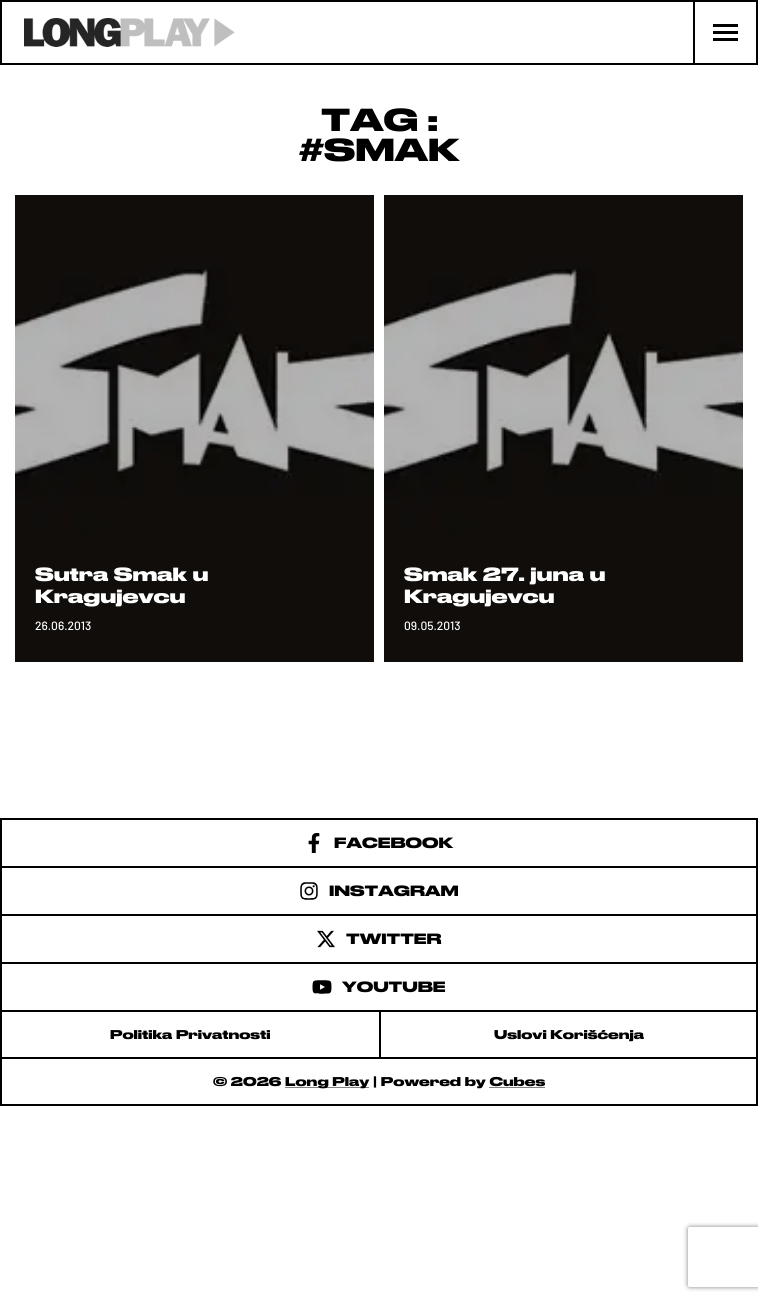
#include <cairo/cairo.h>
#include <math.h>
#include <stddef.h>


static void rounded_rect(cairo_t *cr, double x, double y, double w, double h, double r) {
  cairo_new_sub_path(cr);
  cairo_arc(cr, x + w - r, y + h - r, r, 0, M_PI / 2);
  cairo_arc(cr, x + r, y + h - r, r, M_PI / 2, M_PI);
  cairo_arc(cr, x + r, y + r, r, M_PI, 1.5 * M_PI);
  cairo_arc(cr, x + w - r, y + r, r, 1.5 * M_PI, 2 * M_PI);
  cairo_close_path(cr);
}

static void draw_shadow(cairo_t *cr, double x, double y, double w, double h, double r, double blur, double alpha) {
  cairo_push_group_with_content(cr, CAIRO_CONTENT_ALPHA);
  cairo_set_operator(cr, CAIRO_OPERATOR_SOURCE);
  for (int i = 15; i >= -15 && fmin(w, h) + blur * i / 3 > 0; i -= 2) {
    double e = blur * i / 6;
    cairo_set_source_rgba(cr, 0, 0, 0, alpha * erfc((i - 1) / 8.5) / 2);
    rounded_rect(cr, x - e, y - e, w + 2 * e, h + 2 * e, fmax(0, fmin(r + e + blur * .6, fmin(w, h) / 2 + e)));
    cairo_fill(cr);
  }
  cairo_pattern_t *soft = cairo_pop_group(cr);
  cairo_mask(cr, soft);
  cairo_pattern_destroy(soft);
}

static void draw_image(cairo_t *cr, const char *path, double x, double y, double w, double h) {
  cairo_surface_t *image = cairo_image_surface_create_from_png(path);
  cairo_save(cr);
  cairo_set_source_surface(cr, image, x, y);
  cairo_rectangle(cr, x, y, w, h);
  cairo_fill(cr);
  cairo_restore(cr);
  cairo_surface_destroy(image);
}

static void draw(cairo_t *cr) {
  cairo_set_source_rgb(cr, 1, 1, 1);
  cairo_paint(cr);
  cairo_rectangle(cr, 1, 1, 756, 63);
  cairo_set_source_rgb(cr, 0, 0, 0);
  cairo_stroke(cr);
  draw_image(cr, "images/1.png", 24, 18, 211, 29);
  cairo_rectangle(cr, 693, 2, 2, 61);
  cairo_fill(cr);
  cairo_rectangle(cr, 713, 24, 25, 3);
  cairo_fill(cr);
  cairo_rectangle(cr, 713, 31, 25, 3);
  cairo_fill(cr);
  cairo_rectangle(cr, 713, 38, 25, 3);
  cairo_fill(cr);
  draw_image(cr, "images/2.png", 15, 195, 359, 467);
  draw_image(cr, "images/2.png", 384, 195, 359, 467);
  cairo_rectangle(cr, 0, 818, 758, 2);
  cairo_fill(cr);
  cairo_rectangle(cr, 756, 818, 2, 48);
  cairo_fill(cr);
  cairo_rectangle(cr, 0, 818, 2, 48);
  cairo_fill(cr);
  draw_image(cr, "images/3.png", 308, 833, 12, 20);
  cairo_rectangle(cr, 0, 866, 758, 2);
  cairo_fill(cr);
  cairo_rectangle(cr, 756, 866, 2, 48);
  cairo_fill(cr);
  cairo_rectangle(cr, 0, 866, 2, 48);
  cairo_fill(cr);
  draw_image(cr, "images/4.png", 300, 882, 18, 18);
  cairo_rectangle(cr, 0, 914, 758, 2);
  cairo_fill(cr);
  cairo_rectangle(cr, 756, 914, 2, 48);
  cairo_fill(cr);
  cairo_rectangle(cr, 0, 914, 2, 48);
  cairo_fill(cr);
  draw_image(cr, "images/5.png", 317, 930, 18, 18);
  cairo_rectangle(cr, 0, 962, 758, 2);
  cairo_fill(cr);
  cairo_rectangle(cr, 756, 962, 2, 48);
  cairo_fill(cr);
  cairo_rectangle(cr, 0, 962, 2, 48);
  cairo_fill(cr);
  draw_image(cr, "images/6.png", 312, 980, 20, 14);
  cairo_rectangle(cr, 0, 1010, 379, 2);
  cairo_fill(cr);
  cairo_rectangle(cr, 0, 1057, 379, 2);
  cairo_fill(cr);
  cairo_rectangle(cr, 0, 1010, 2, 49);
  cairo_fill(cr);
  cairo_rectangle(cr, 380, 1011, 377, 47);
  cairo_stroke(cr);
  cairo_rectangle(cr, 756, 1059, 2, 47);
  cairo_fill(cr);
  cairo_rectangle(cr, 0, 1104, 758, 2);
  cairo_fill(cr);
  cairo_rectangle(cr, 0, 1059, 2, 47);
  cairo_fill(cr);
  cairo_set_source_rgb(cr, 128 / 255.0, 128 / 255.0, 128 / 255.0);
  cairo_rectangle(cr, 285, 1087, 84, 1);
  cairo_fill(cr);
  cairo_save(cr);
  cairo_set_fill_rule(cr, CAIRO_FILL_RULE_EVEN_ODD);
  cairo_new_path(cr);
  cairo_move_to(cr, 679, 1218);
  cairo_line_to(cr, 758, 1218);
  cairo_line_to(cr, 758, 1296);
  cairo_line_to(cr, 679, 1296);
  cairo_close_path(cr);
  cairo_move_to(cr, 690, 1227);
  cairo_line_to(cr, 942, 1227);
  cairo_curve_to(cr, 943, 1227, 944, 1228, 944, 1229);
  cairo_line_to(cr, 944, 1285);
  cairo_curve_to(cr, 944, 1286, 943, 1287, 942, 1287);
  cairo_line_to(cr, 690, 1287);
  cairo_curve_to(cr, 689, 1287, 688, 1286, 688, 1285);
  cairo_line_to(cr, 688, 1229);
  cairo_curve_to(cr, 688, 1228, 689, 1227, 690, 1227);
  cairo_close_path(cr);
  cairo_clip(cr);
  cairo_set_source_rgb(cr, 128 / 255.0, 128 / 255.0, 128 / 255.0);
  draw_shadow(cr, 688, 1227, 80, 60, 2, 2.5, 1);
  cairo_restore(cr);
  cairo_select_font_face(cr, "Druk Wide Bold", CAIRO_FONT_SLANT_NORMAL, CAIRO_FONT_WEIGHT_BOLD);
  cairo_set_font_size(cr, 30);
  cairo_set_source_rgb(cr, 0, 0, 0);
  cairo_move_to(cr, 321, 131);
  cairo_show_text(cr, "TAG :");
  cairo_move_to(cr, 299, 161);
  cairo_show_text(cr, "#SMAK");
  cairo_set_font_size(cr, 18);
  cairo_set_source_rgb(cr, 1, 1, 1);
  cairo_move_to(cr, 35, 581);
  cairo_show_text(cr, "Sutra Smak u");
  cairo_move_to(cr, 35, 603);
  cairo_show_text(cr, "Kragujevcu");
  cairo_select_font_face(cr, "Barlow Medium", CAIRO_FONT_SLANT_NORMAL, CAIRO_FONT_WEIGHT_NORMAL);
  cairo_set_font_size(cr, 12);
  cairo_move_to(cr, 35, 630);
  cairo_show_text(cr, "26.06.2013");
  cairo_select_font_face(cr, "Druk Wide Bold", CAIRO_FONT_SLANT_NORMAL, CAIRO_FONT_WEIGHT_BOLD);
  cairo_set_font_size(cr, 18);
  cairo_move_to(cr, 404, 581);
  cairo_show_text(cr, "Smak 27. juna u");
  cairo_move_to(cr, 404, 603);
  cairo_show_text(cr, "Kragujevcu");
  cairo_select_font_face(cr, "Barlow Medium", CAIRO_FONT_SLANT_NORMAL, CAIRO_FONT_WEIGHT_NORMAL);
  cairo_set_font_size(cr, 12);
  cairo_move_to(cr, 404, 630);
  cairo_show_text(cr, "09.05.2013");
  cairo_select_font_face(cr, "Druk Wide Bold", CAIRO_FONT_SLANT_NORMAL, CAIRO_FONT_WEIGHT_BOLD);
  cairo_set_font_size(cr, 14);
  cairo_set_source_rgb(cr, 0, 0, 0);
  cairo_move_to(cr, 334, 848);
  cairo_show_text(cr, "FACEBOOK");
  cairo_move_to(cr, 329, 896);
  cairo_show_text(cr, "INSTAGRAM");
  cairo_move_to(cr, 346, 944);
  cairo_show_text(cr, "TWITTER");
  cairo_move_to(cr, 342, 992);
  cairo_show_text(cr, "YOUTUBE");
  cairo_set_font_size(cr, 12);
  cairo_move_to(cr, 110, 1039);
  cairo_show_text(cr, "Politika Privatnosti");
  cairo_move_to(cr, 494, 1039);
  cairo_show_text(cr, "Uslovi Korišćenja");
  cairo_move_to(cr, 213, 1086);
  cairo_show_text(cr, "© 2026");
  cairo_move_to(cr, 285, 1086);
  cairo_show_text(cr, "Long Play | Powered by Cubes");
  cairo_set_source_rgb(cr, 128 / 255.0, 128 / 255.0, 128 / 255.0);
  cairo_rectangle(cr, 489, 1087, 56, 1);
  cairo_fill(cr);
}

int main(void) {
  cairo_surface_t *surface = cairo_image_surface_create(CAIRO_FORMAT_RGB24, 758, 1301);
  cairo_t *cr = cairo_create(surface);
  cairo_font_options_t *options = cairo_font_options_create();
  cairo_font_options_set_hint_metrics(options, CAIRO_HINT_METRICS_OFF);
  cairo_font_options_set_hint_style(options, CAIRO_HINT_STYLE_NONE);
  cairo_set_font_options(cr, options);
  cairo_set_miter_limit(cr, 4);
  draw(cr);
  cairo_surface_write_to_png(surface, "out.png");
  cairo_font_options_destroy(options);
  cairo_destroy(cr);
  cairo_surface_destroy(surface);
  return 0;
}
